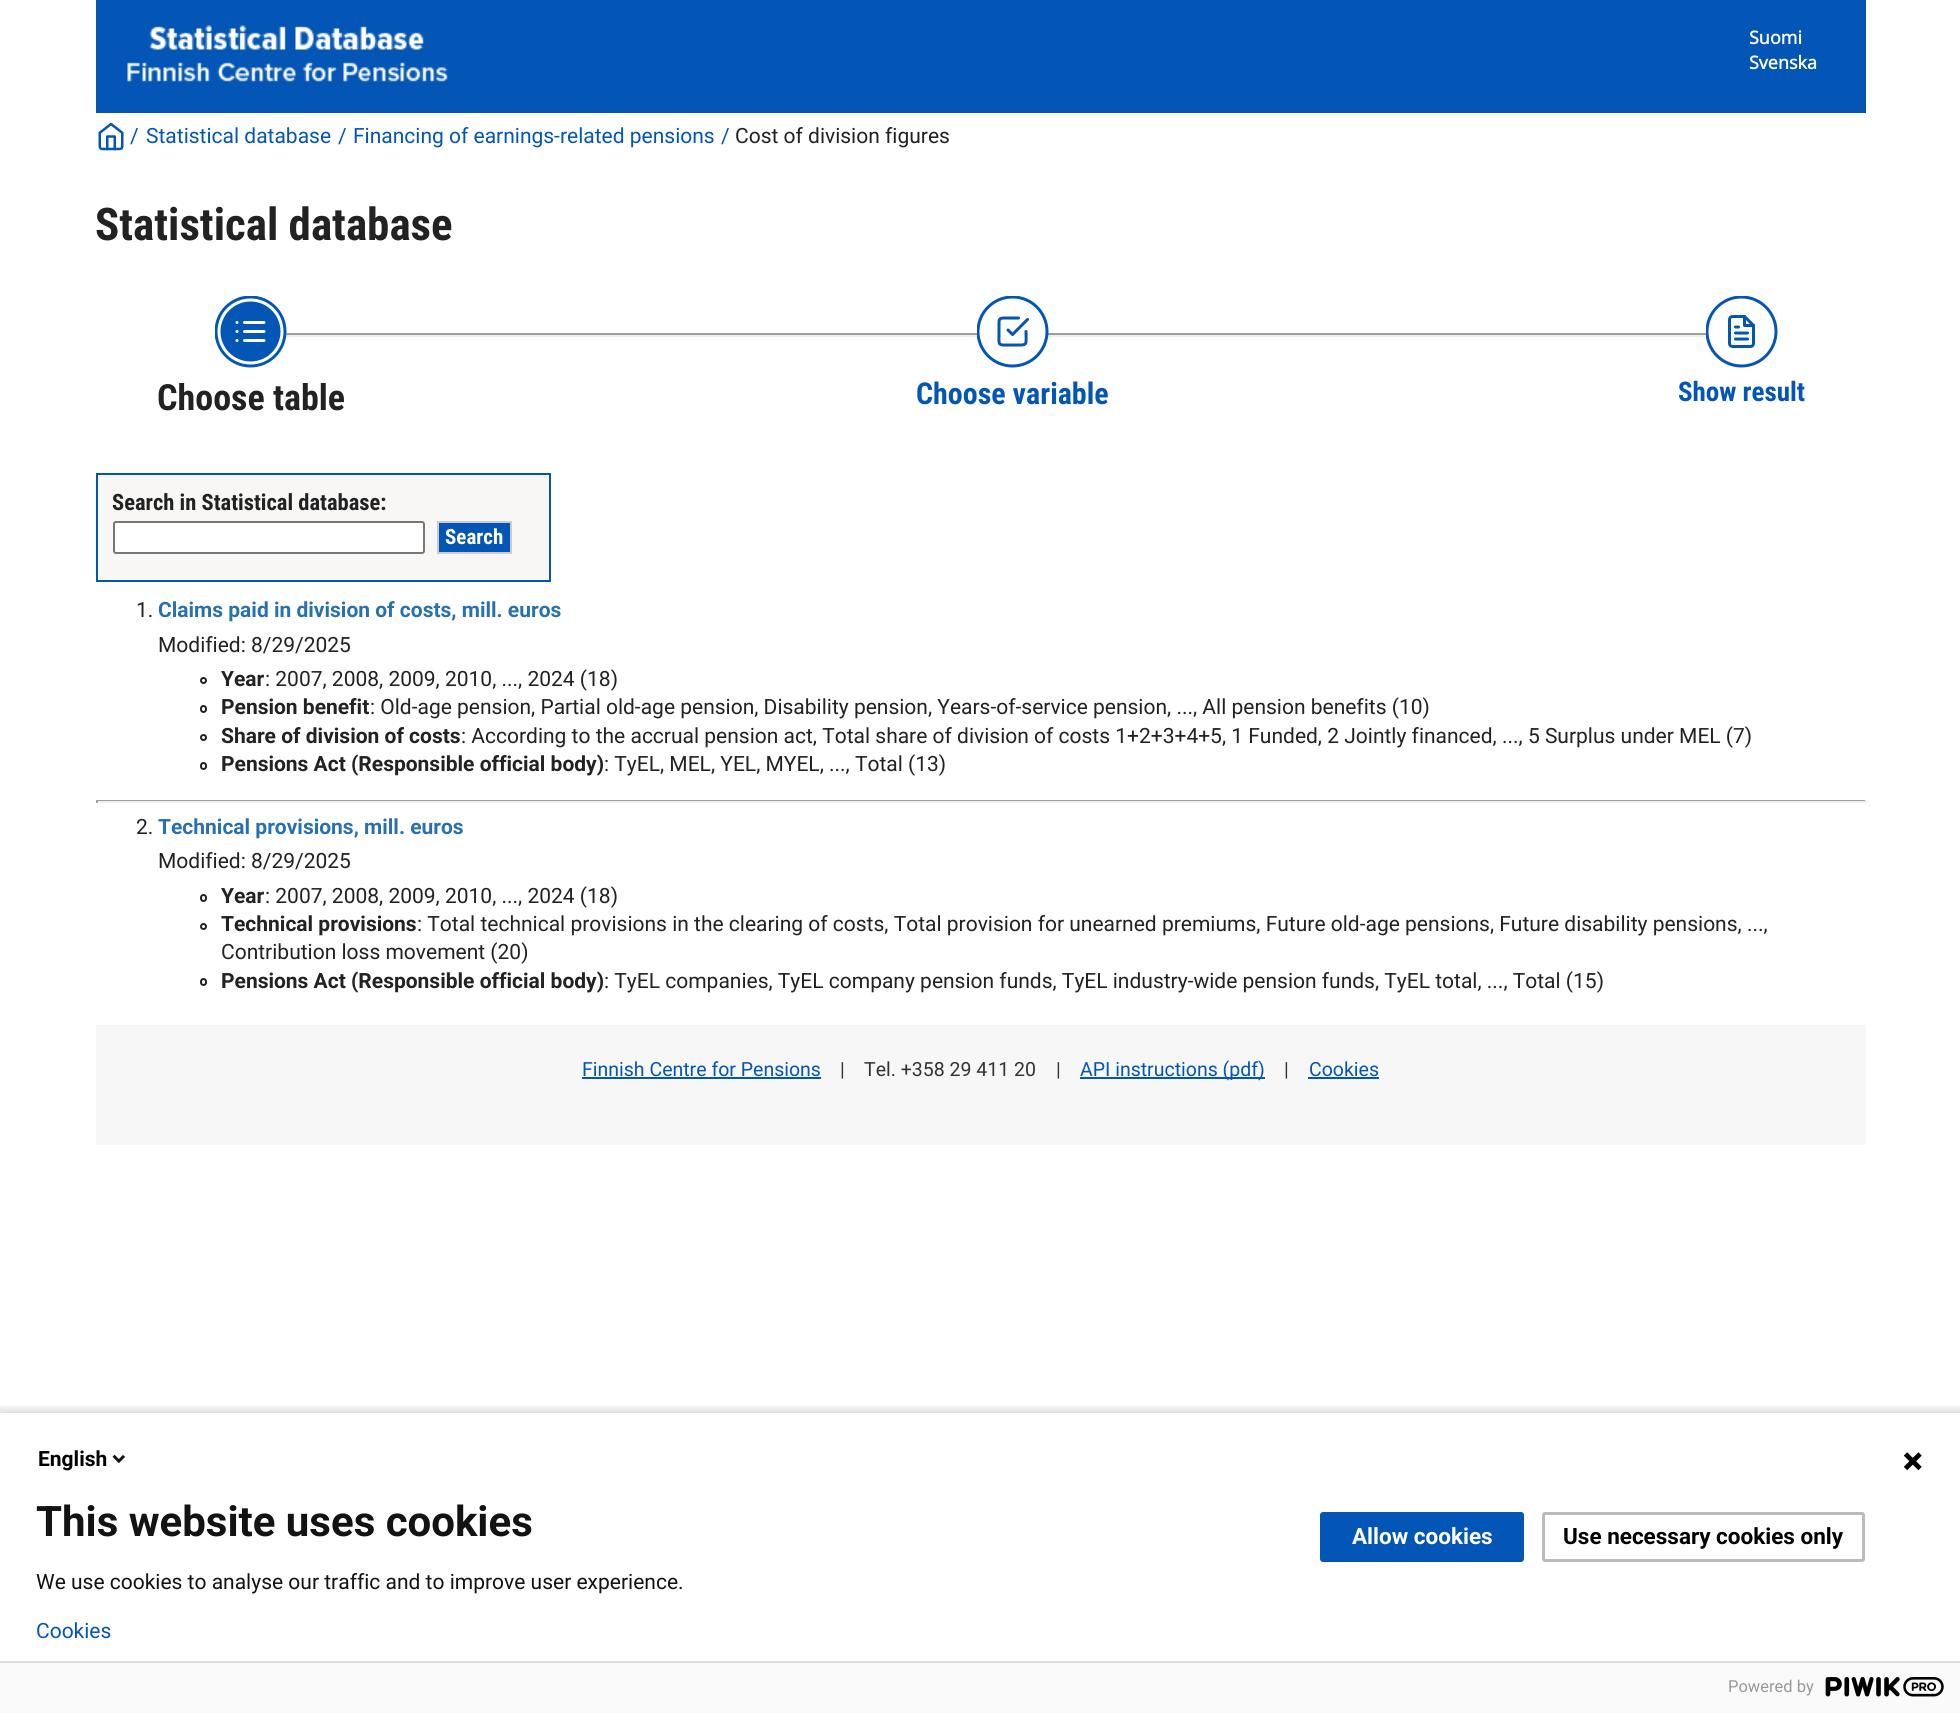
#include <cairo/cairo.h>
#include <math.h>
#include <stddef.h>


static void rounded_rect(cairo_t *cr, double x, double y, double w, double h, double r) {
  cairo_new_sub_path(cr);
  cairo_arc(cr, x + w - r, y + h - r, r, 0, M_PI / 2);
  cairo_arc(cr, x + r, y + h - r, r, M_PI / 2, M_PI);
  cairo_arc(cr, x + r, y + r, r, M_PI, 1.5 * M_PI);
  cairo_arc(cr, x + w - r, y + r, r, 1.5 * M_PI, 2 * M_PI);
  cairo_close_path(cr);
}

static void draw_shadow(cairo_t *cr, double x, double y, double w, double h, double r, double blur, double alpha) {
  cairo_push_group_with_content(cr, CAIRO_CONTENT_ALPHA);
  cairo_set_operator(cr, CAIRO_OPERATOR_SOURCE);
  for (int i = 15; i >= -15 && fmin(w, h) + blur * i / 3 > 0; i -= 2) {
    double e = blur * i / 6;
    cairo_set_source_rgba(cr, 0, 0, 0, alpha * erfc((i - 1) / 8.5) / 2);
    rounded_rect(cr, x - e, y - e, w + 2 * e, h + 2 * e, fmax(0, fmin(r + e + blur * .6, fmin(w, h) / 2 + e)));
    cairo_fill(cr);
  }
  cairo_pattern_t *soft = cairo_pop_group(cr);
  cairo_mask(cr, soft);
  cairo_pattern_destroy(soft);
}

static void draw_image(cairo_t *cr, const char *path, double x, double y, double w, double h) {
  cairo_surface_t *image = cairo_image_surface_create_from_png(path);
  cairo_save(cr);
  cairo_set_source_surface(cr, image, x, y);
  cairo_rectangle(cr, x, y, w, h);
  cairo_fill(cr);
  cairo_restore(cr);
  cairo_surface_destroy(image);
}

static void draw(cairo_t *cr) {
  cairo_set_source_rgb(cr, 1, 1, 1);
  cairo_paint(cr);
  cairo_set_source_rgb(cr, 3 / 255.0, 86 / 255.0, 181 / 255.0);
  cairo_rectangle(cr, 96, 0, 1770, 113);
  cairo_fill(cr);
  draw_image(cr, "images/1.png", 127, 25, 321, 57);
  draw_image(cr, "images/2.png", 98, 122, 26, 29);
  cairo_set_source_rgb(cr, 159 / 255.0, 159 / 255.0, 159 / 255.0);
  cairo_rectangle(cr, 286, 333, 691, 2);
  cairo_fill(cr);
  cairo_set_source_rgb(cr, 238 / 255.0, 238 / 255.0, 238 / 255.0);
  cairo_rectangle(cr, 286, 335, 691, 2);
  cairo_fill(cr);
  cairo_set_source_rgb(cr, 159 / 255.0, 159 / 255.0, 159 / 255.0);
  cairo_rectangle(cr, 1048, 333, 658, 2);
  cairo_fill(cr);
  cairo_set_source_rgb(cr, 238 / 255.0, 238 / 255.0, 238 / 255.0);
  cairo_rectangle(cr, 1048, 335, 658, 2);
  cairo_fill(cr);
  draw_image(cr, "images/3.png", 215, 296, 72, 72);
  cairo_save(cr);
  cairo_rectangle(cr, 977, 296, 72, 72);
  cairo_clip(cr);
  cairo_arc(cr, 1012.5, 331.5, 34.5, 0, 2 * M_PI);
  cairo_set_source_rgb(cr, 3 / 255.0, 86 / 255.0, 181 / 255.0);
  cairo_set_line_width(cr, 3);
  cairo_stroke(cr);
  cairo_restore(cr);
  cairo_new_path(cr);
  cairo_move_to(cr, 1008, 330);
  cairo_line_to(cr, 1012.5, 334.5);
  cairo_line_to(cr, 1027.5, 319.5);
  cairo_move_to(cr, 1026, 331.5);
  cairo_curve_to(cr, 1026, 346.5, 1028.5, 345, 1012.5, 345);
  cairo_curve_to(cr, 997, 345, 999, 347, 999, 331.5);
  cairo_line_to(cr, 999, 324.5);
  cairo_curve_to(cr, 999, 319, 999, 318, 1005, 318);
  cairo_line_to(cr, 1018.5, 318);
  cairo_set_source_rgb(cr, 3 / 255.0, 86 / 255.0, 181 / 255.0);
  cairo_set_line_width(cr, 3);
  cairo_set_line_cap(cr, CAIRO_LINE_CAP_ROUND);
  cairo_set_line_join(cr, CAIRO_LINE_JOIN_ROUND);
  cairo_stroke(cr);
  draw_image(cr, "images/4.png", 1706, 296, 72, 72);
  cairo_set_source_rgb(cr, 248 / 255.0, 247 / 255.0, 246 / 255.0);
  cairo_rectangle(cr, 97, 474, 453, 107);
  cairo_fill_preserve(cr);
  cairo_set_source_rgb(cr, 3 / 255.0, 86 / 255.0, 181 / 255.0);
  cairo_set_line_width(cr, 2);
  cairo_set_line_cap(cr, CAIRO_LINE_CAP_BUTT);
  cairo_set_line_join(cr, CAIRO_LINE_JOIN_MITER);
  cairo_stroke(cr);
  cairo_set_source_rgb(cr, 1, 1, 1);
  rounded_rect(cr, 114, 522, 310, 31, 2);
  cairo_fill_preserve(cr);
  cairo_set_source_rgb(cr, 118 / 255.0, 118 / 255.0, 118 / 255.0);
  cairo_stroke(cr);
  cairo_set_source_rgb(cr, 3 / 255.0, 86 / 255.0, 181 / 255.0);
  cairo_rectangle(cr, 438, 522, 73, 31);
  cairo_fill_preserve(cr);
  cairo_set_source_rgb(cr, 204 / 255.0, 204 / 255.0, 204 / 255.0);
  cairo_stroke(cr);
  cairo_arc(cr, 203.5, 680.5, 2.5, 0, 2 * M_PI);
  cairo_set_source_rgb(cr, 34 / 255.0, 34 / 255.0, 34 / 255.0);
  cairo_stroke(cr);
  rounded_rect(cr, 201, 706, 5, 6, 2.5);
  cairo_stroke(cr);
  cairo_arc(cr, 203.5, 737.5, 2.5, 0, 2 * M_PI);
  cairo_stroke(cr);
  rounded_rect(cr, 201, 763, 5, 6, 2.5);
  cairo_stroke(cr);
  cairo_set_source_rgb(cr, 159 / 255.0, 159 / 255.0, 159 / 255.0);
  cairo_rectangle(cr, 96, 800, 1770, 1);
  cairo_fill(cr);
  cairo_set_source_rgb(cr, 238 / 255.0, 238 / 255.0, 238 / 255.0);
  cairo_rectangle(cr, 1865, 800, 2, 3);
  cairo_fill(cr);
  cairo_rectangle(cr, 96, 801, 1770, 2);
  cairo_fill(cr);
  cairo_set_source_rgb(cr, 159 / 255.0, 159 / 255.0, 159 / 255.0);
  cairo_rectangle(cr, 96, 800, 2, 3);
  cairo_fill(cr);
  rounded_rect(cr, 201, 895, 5, 6, 2.5);
  cairo_set_source_rgb(cr, 34 / 255.0, 34 / 255.0, 34 / 255.0);
  cairo_stroke(cr);
  cairo_arc(cr, 203.5, 926.5, 2.5, 0, 2 * M_PI);
  cairo_stroke(cr);
  rounded_rect(cr, 201, 979, 5, 6, 2.5);
  cairo_stroke(cr);
  cairo_set_source_rgb(cr, 247 / 255.0, 247 / 255.0, 247 / 255.0);
  cairo_rectangle(cr, 96, 1025, 1770, 120);
  cairo_fill(cr);
  cairo_set_source_rgb(cr, 3 / 255.0, 86 / 255.0, 181 / 255.0);
  cairo_rectangle(cr, 582, 1077, 239, 2);
  cairo_fill(cr);
  cairo_rectangle(cr, 1080, 1077, 185, 2);
  cairo_fill(cr);
  cairo_rectangle(cr, 1308, 1077, 71, 2);
  cairo_fill(cr);
  cairo_save(cr);
  cairo_rectangle(cr, 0, 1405, 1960, 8);
  cairo_clip(cr);
  cairo_set_source_rgb(cr, 0, 0, 0);
  draw_shadow(cr, -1, 1409, 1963, 303, 0, 4, 0.14);
  cairo_restore(cr);
  draw_image(cr, "images/5.png", 112, 1454, 13, 10);
  draw_image(cr, "images/6.png", 1903, 1452, 19, 19);
  rounded_rect(cr, 1321.5, 1513.5, 201, 47, 1.5);
  cairo_fill_preserve(cr);
  cairo_set_line_width(cr, 3);
  cairo_stroke(cr);
  rounded_rect(cr, 1543.5, 1513.5, 320, 47, 1.5);
  cairo_set_source_rgb(cr, 187 / 255.0, 187 / 255.0, 187 / 255.0);
  cairo_stroke(cr);
  cairo_set_source_rgb(cr, 250 / 255.0, 250 / 255.0, 250 / 255.0);
  cairo_rectangle(cr, 0, 1663, 1960, 50);
  cairo_fill(cr);
  cairo_set_source_rgb(cr, 221 / 255.0, 221 / 255.0, 221 / 255.0);
  cairo_rectangle(cr, 0, 1661, 1960, 2);
  cairo_fill(cr);
  draw_image(cr, "images/7.png", 1825, 1677, 119, 20);
  cairo_select_font_face(cr, "Open Sans", CAIRO_FONT_SLANT_NORMAL, CAIRO_FONT_WEIGHT_BOLD);
  cairo_set_font_size(cr, 18);
  cairo_set_source_rgb(cr, 1, 1, 1);
  cairo_move_to(cr, 1749, 44);
  cairo_show_text(cr, "Suomi");
  cairo_move_to(cr, 1749, 69);
  cairo_show_text(cr, "Svenska");
  cairo_select_font_face(cr, "Roboto", CAIRO_FONT_SLANT_NORMAL, CAIRO_FONT_WEIGHT_NORMAL);
  cairo_set_font_size(cr, 21);
  cairo_set_source_rgb(cr, 3 / 255.0, 86 / 255.0, 181 / 255.0);
  cairo_move_to(cr, 130, 143);
  cairo_show_text(cr, "/");
  cairo_move_to(cr, 146, 143);
  cairo_show_text(cr, "Statistical database");
  cairo_move_to(cr, 338, 143);
  cairo_show_text(cr, "/");
  cairo_move_to(cr, 353, 143);
  cairo_show_text(cr, "Financing of earnings-related pensions");
  cairo_move_to(cr, 721, 143);
  cairo_show_text(cr, "/");
  cairo_set_source_rgb(cr, 34 / 255.0, 34 / 255.0, 34 / 255.0);
  cairo_move_to(cr, 735, 143);
  cairo_show_text(cr, "Cost of division figures");
  cairo_select_font_face(cr, "Roboto Condensed", CAIRO_FONT_SLANT_NORMAL, CAIRO_FONT_WEIGHT_BOLD);
  cairo_set_font_size(cr, 45);
  cairo_move_to(cr, 95, 240);
  cairo_show_text(cr, "Statistical database");
  cairo_set_font_size(cr, 36);
  cairo_move_to(cr, 157, 410);
  cairo_show_text(cr, "Choose table");
  cairo_set_font_size(cr, 30);
  cairo_set_source_rgb(cr, 3 / 255.0, 86 / 255.0, 181 / 255.0);
  cairo_move_to(cr, 916, 404);
  cairo_show_text(cr, "Choose variable");
  cairo_set_font_size(cr, 27);
  cairo_move_to(cr, 1678, 401);
  cairo_show_text(cr, "Show result");
  cairo_set_font_size(cr, 22.5);
  cairo_set_source_rgb(cr, 34 / 255.0, 34 / 255.0, 34 / 255.0);
  cairo_move_to(cr, 112, 510);
  cairo_show_text(cr, "Search in Statistical database:");
  cairo_set_font_size(cr, 21);
  cairo_set_source_rgb(cr, 1, 1, 1);
  cairo_move_to(cr, 445, 544);
  cairo_show_text(cr, "Search");
  cairo_select_font_face(cr, "Roboto", CAIRO_FONT_SLANT_NORMAL, CAIRO_FONT_WEIGHT_NORMAL);
  cairo_set_source_rgb(cr, 34 / 255.0, 34 / 255.0, 34 / 255.0);
  cairo_move_to(cr, 136, 617);
  cairo_show_text(cr, "1.");
  cairo_select_font_face(cr, "Roboto", CAIRO_FONT_SLANT_NORMAL, CAIRO_FONT_WEIGHT_BOLD);
  cairo_set_source_rgb(cr, 40 / 255.0, 112 / 255.0, 174 / 255.0);
  cairo_move_to(cr, 158, 617);
  cairo_show_text(cr, "Claims paid in division of costs, mill. euros");
  cairo_select_font_face(cr, "Roboto", CAIRO_FONT_SLANT_NORMAL, CAIRO_FONT_WEIGHT_NORMAL);
  cairo_set_source_rgb(cr, 34 / 255.0, 34 / 255.0, 34 / 255.0);
  cairo_move_to(cr, 158, 652);
  cairo_show_text(cr, "Modified: 8/29/2025");
  cairo_select_font_face(cr, "Roboto", CAIRO_FONT_SLANT_NORMAL, CAIRO_FONT_WEIGHT_BOLD);
  cairo_move_to(cr, 221, 686);
  cairo_show_text(cr, "Year");
  cairo_select_font_face(cr, "Roboto", CAIRO_FONT_SLANT_NORMAL, CAIRO_FONT_WEIGHT_NORMAL);
  cairo_move_to(cr, 265, 686);
  cairo_show_text(cr, ": 2007, 2008, 2009, 2010, ..., 2024 (18)");
  cairo_select_font_face(cr, "Roboto", CAIRO_FONT_SLANT_NORMAL, CAIRO_FONT_WEIGHT_BOLD);
  cairo_move_to(cr, 221, 714);
  cairo_show_text(cr, "Pension benefit");
  cairo_select_font_face(cr, "Roboto", CAIRO_FONT_SLANT_NORMAL, CAIRO_FONT_WEIGHT_NORMAL);
  cairo_move_to(cr, 370, 714);
  cairo_show_text(cr, ": Old-age pension, Partial old-age pension, Disability pension, Years-of-service pension, ..., All pension benefits (10)");
  cairo_select_font_face(cr, "Roboto", CAIRO_FONT_SLANT_NORMAL, CAIRO_FONT_WEIGHT_BOLD);
  cairo_move_to(cr, 221, 743);
  cairo_show_text(cr, "Share of division of costs");
  cairo_select_font_face(cr, "Roboto", CAIRO_FONT_SLANT_NORMAL, CAIRO_FONT_WEIGHT_NORMAL);
  cairo_move_to(cr, 461, 743);
  cairo_show_text(cr, ": According to the accrual pension act, Total share of division of costs 1+2+3+4+5, 1 Funded, 2 Jointly financed, ..., 5 Surplus under MEL (7)");
  cairo_select_font_face(cr, "Roboto", CAIRO_FONT_SLANT_NORMAL, CAIRO_FONT_WEIGHT_BOLD);
  cairo_move_to(cr, 221, 771);
  cairo_show_text(cr, "Pensions Act (Responsible official body)");
  cairo_select_font_face(cr, "Roboto", CAIRO_FONT_SLANT_NORMAL, CAIRO_FONT_WEIGHT_NORMAL);
  cairo_move_to(cr, 604, 771);
  cairo_show_text(cr, ": TyEL, MEL, YEL, MYEL, ..., Total (13)");
  cairo_move_to(cr, 136, 834);
  cairo_show_text(cr, "2.");
  cairo_select_font_face(cr, "Roboto", CAIRO_FONT_SLANT_NORMAL, CAIRO_FONT_WEIGHT_BOLD);
  cairo_set_source_rgb(cr, 40 / 255.0, 112 / 255.0, 174 / 255.0);
  cairo_move_to(cr, 158, 834);
  cairo_show_text(cr, "Technical provisions, mill. euros");
  cairo_select_font_face(cr, "Roboto", CAIRO_FONT_SLANT_NORMAL, CAIRO_FONT_WEIGHT_NORMAL);
  cairo_set_source_rgb(cr, 34 / 255.0, 34 / 255.0, 34 / 255.0);
  cairo_move_to(cr, 158, 868);
  cairo_show_text(cr, "Modified: 8/29/2025");
  cairo_select_font_face(cr, "Roboto", CAIRO_FONT_SLANT_NORMAL, CAIRO_FONT_WEIGHT_BOLD);
  cairo_move_to(cr, 221, 903);
  cairo_show_text(cr, "Year");
  cairo_select_font_face(cr, "Roboto", CAIRO_FONT_SLANT_NORMAL, CAIRO_FONT_WEIGHT_NORMAL);
  cairo_move_to(cr, 265, 903);
  cairo_show_text(cr, ": 2007, 2008, 2009, 2010, ..., 2024 (18)");
  cairo_select_font_face(cr, "Roboto", CAIRO_FONT_SLANT_NORMAL, CAIRO_FONT_WEIGHT_BOLD);
  cairo_move_to(cr, 221, 931);
  cairo_show_text(cr, "Technical provisions");
  cairo_select_font_face(cr, "Roboto", CAIRO_FONT_SLANT_NORMAL, CAIRO_FONT_WEIGHT_NORMAL);
  cairo_move_to(cr, 417, 931);
  cairo_show_text(cr, ": Total technical provisions in the clearing of costs, Total provision for unearned premiums, Future old-age pensions, Future disability pensions, ...,");
  cairo_move_to(cr, 221, 959);
  cairo_show_text(cr, "Contribution loss movement (20)");
  cairo_select_font_face(cr, "Roboto", CAIRO_FONT_SLANT_NORMAL, CAIRO_FONT_WEIGHT_BOLD);
  cairo_move_to(cr, 221, 988);
  cairo_show_text(cr, "Pensions Act (Responsible official body)");
  cairo_select_font_face(cr, "Roboto", CAIRO_FONT_SLANT_NORMAL, CAIRO_FONT_WEIGHT_NORMAL);
  cairo_move_to(cr, 604, 988);
  cairo_show_text(cr, ": TyEL companies, TyEL company pension funds, TyEL industry-wide pension funds, TyEL total, ..., Total (15)");
  cairo_set_font_size(cr, 19.5);
  cairo_set_source_rgb(cr, 3 / 255.0, 86 / 255.0, 181 / 255.0);
  cairo_move_to(cr, 582, 1076);
  cairo_show_text(cr, "Finnish Centre for Pensions");
  cairo_set_source_rgb(cr, 51 / 255.0, 51 / 255.0, 51 / 255.0);
  cairo_move_to(cr, 840, 1076);
  cairo_show_text(cr, "|");
  cairo_move_to(cr, 864, 1076);
  cairo_show_text(cr, "Tel. +358 29 411 20");
  cairo_move_to(cr, 1056, 1076);
  cairo_show_text(cr, "|");
  cairo_set_source_rgb(cr, 3 / 255.0, 86 / 255.0, 181 / 255.0);
  cairo_move_to(cr, 1080, 1076);
  cairo_show_text(cr, "API instructions (pdf)");
  cairo_set_source_rgb(cr, 51 / 255.0, 51 / 255.0, 51 / 255.0);
  cairo_move_to(cr, 1284, 1076);
  cairo_show_text(cr, "|");
  cairo_set_source_rgb(cr, 3 / 255.0, 86 / 255.0, 181 / 255.0);
  cairo_move_to(cr, 1309, 1076);
  cairo_show_text(cr, "Cookies");
  cairo_select_font_face(cr, "Roboto", CAIRO_FONT_SLANT_NORMAL, CAIRO_FONT_WEIGHT_BOLD);
  cairo_set_font_size(cr, 21);
  cairo_set_source_rgb(cr, 0, 0, 0);
  cairo_move_to(cr, 38, 1466);
  cairo_show_text(cr, "English");
  cairo_set_font_size(cr, 42);
  cairo_set_source_rgb(cr, 19 / 255.0, 19 / 255.0, 19 / 255.0);
  cairo_move_to(cr, 36, 1536);
  cairo_show_text(cr, "This website uses cookies");
  cairo_select_font_face(cr, "Roboto", CAIRO_FONT_SLANT_NORMAL, CAIRO_FONT_WEIGHT_NORMAL);
  cairo_set_font_size(cr, 21);
  cairo_move_to(cr, 36, 1589);
  cairo_show_text(cr, "We use cookies to analyse our traffic and to improve user experience.");
  cairo_set_source_rgb(cr, 3 / 255.0, 86 / 255.0, 181 / 255.0);
  cairo_move_to(cr, 36, 1638);
  cairo_show_text(cr, "Cookies");
  cairo_select_font_face(cr, "Roboto", CAIRO_FONT_SLANT_NORMAL, CAIRO_FONT_WEIGHT_BOLD);
  cairo_set_font_size(cr, 22.5);
  cairo_set_source_rgb(cr, 1, 1, 1);
  cairo_move_to(cr, 1352, 1544);
  cairo_show_text(cr, "Allow cookies");
  cairo_set_source_rgb(cr, 0, 0, 0);
  cairo_move_to(cr, 1563, 1544);
  cairo_show_text(cr, "Use necessary cookies only");
  cairo_select_font_face(cr, "Roboto", CAIRO_FONT_SLANT_NORMAL, CAIRO_FONT_WEIGHT_NORMAL);
  cairo_set_font_size(cr, 16.5);
  cairo_set_source_rgb(cr, 153 / 255.0, 153 / 255.0, 153 / 255.0);
  cairo_move_to(cr, 1728, 1692);
  cairo_show_text(cr, "Powered by");
}

int main(void) {
  cairo_surface_t *surface = cairo_image_surface_create(CAIRO_FORMAT_RGB24, 1960, 1713);
  cairo_t *cr = cairo_create(surface);
  cairo_font_options_t *options = cairo_font_options_create();
  cairo_font_options_set_hint_metrics(options, CAIRO_HINT_METRICS_OFF);
  cairo_font_options_set_hint_style(options, CAIRO_HINT_STYLE_NONE);
  cairo_set_font_options(cr, options);
  cairo_set_miter_limit(cr, 4);
  draw(cr);
  cairo_surface_write_to_png(surface, "out.png");
  cairo_font_options_destroy(options);
  cairo_destroy(cr);
  cairo_surface_destroy(surface);
  return 0;
}
